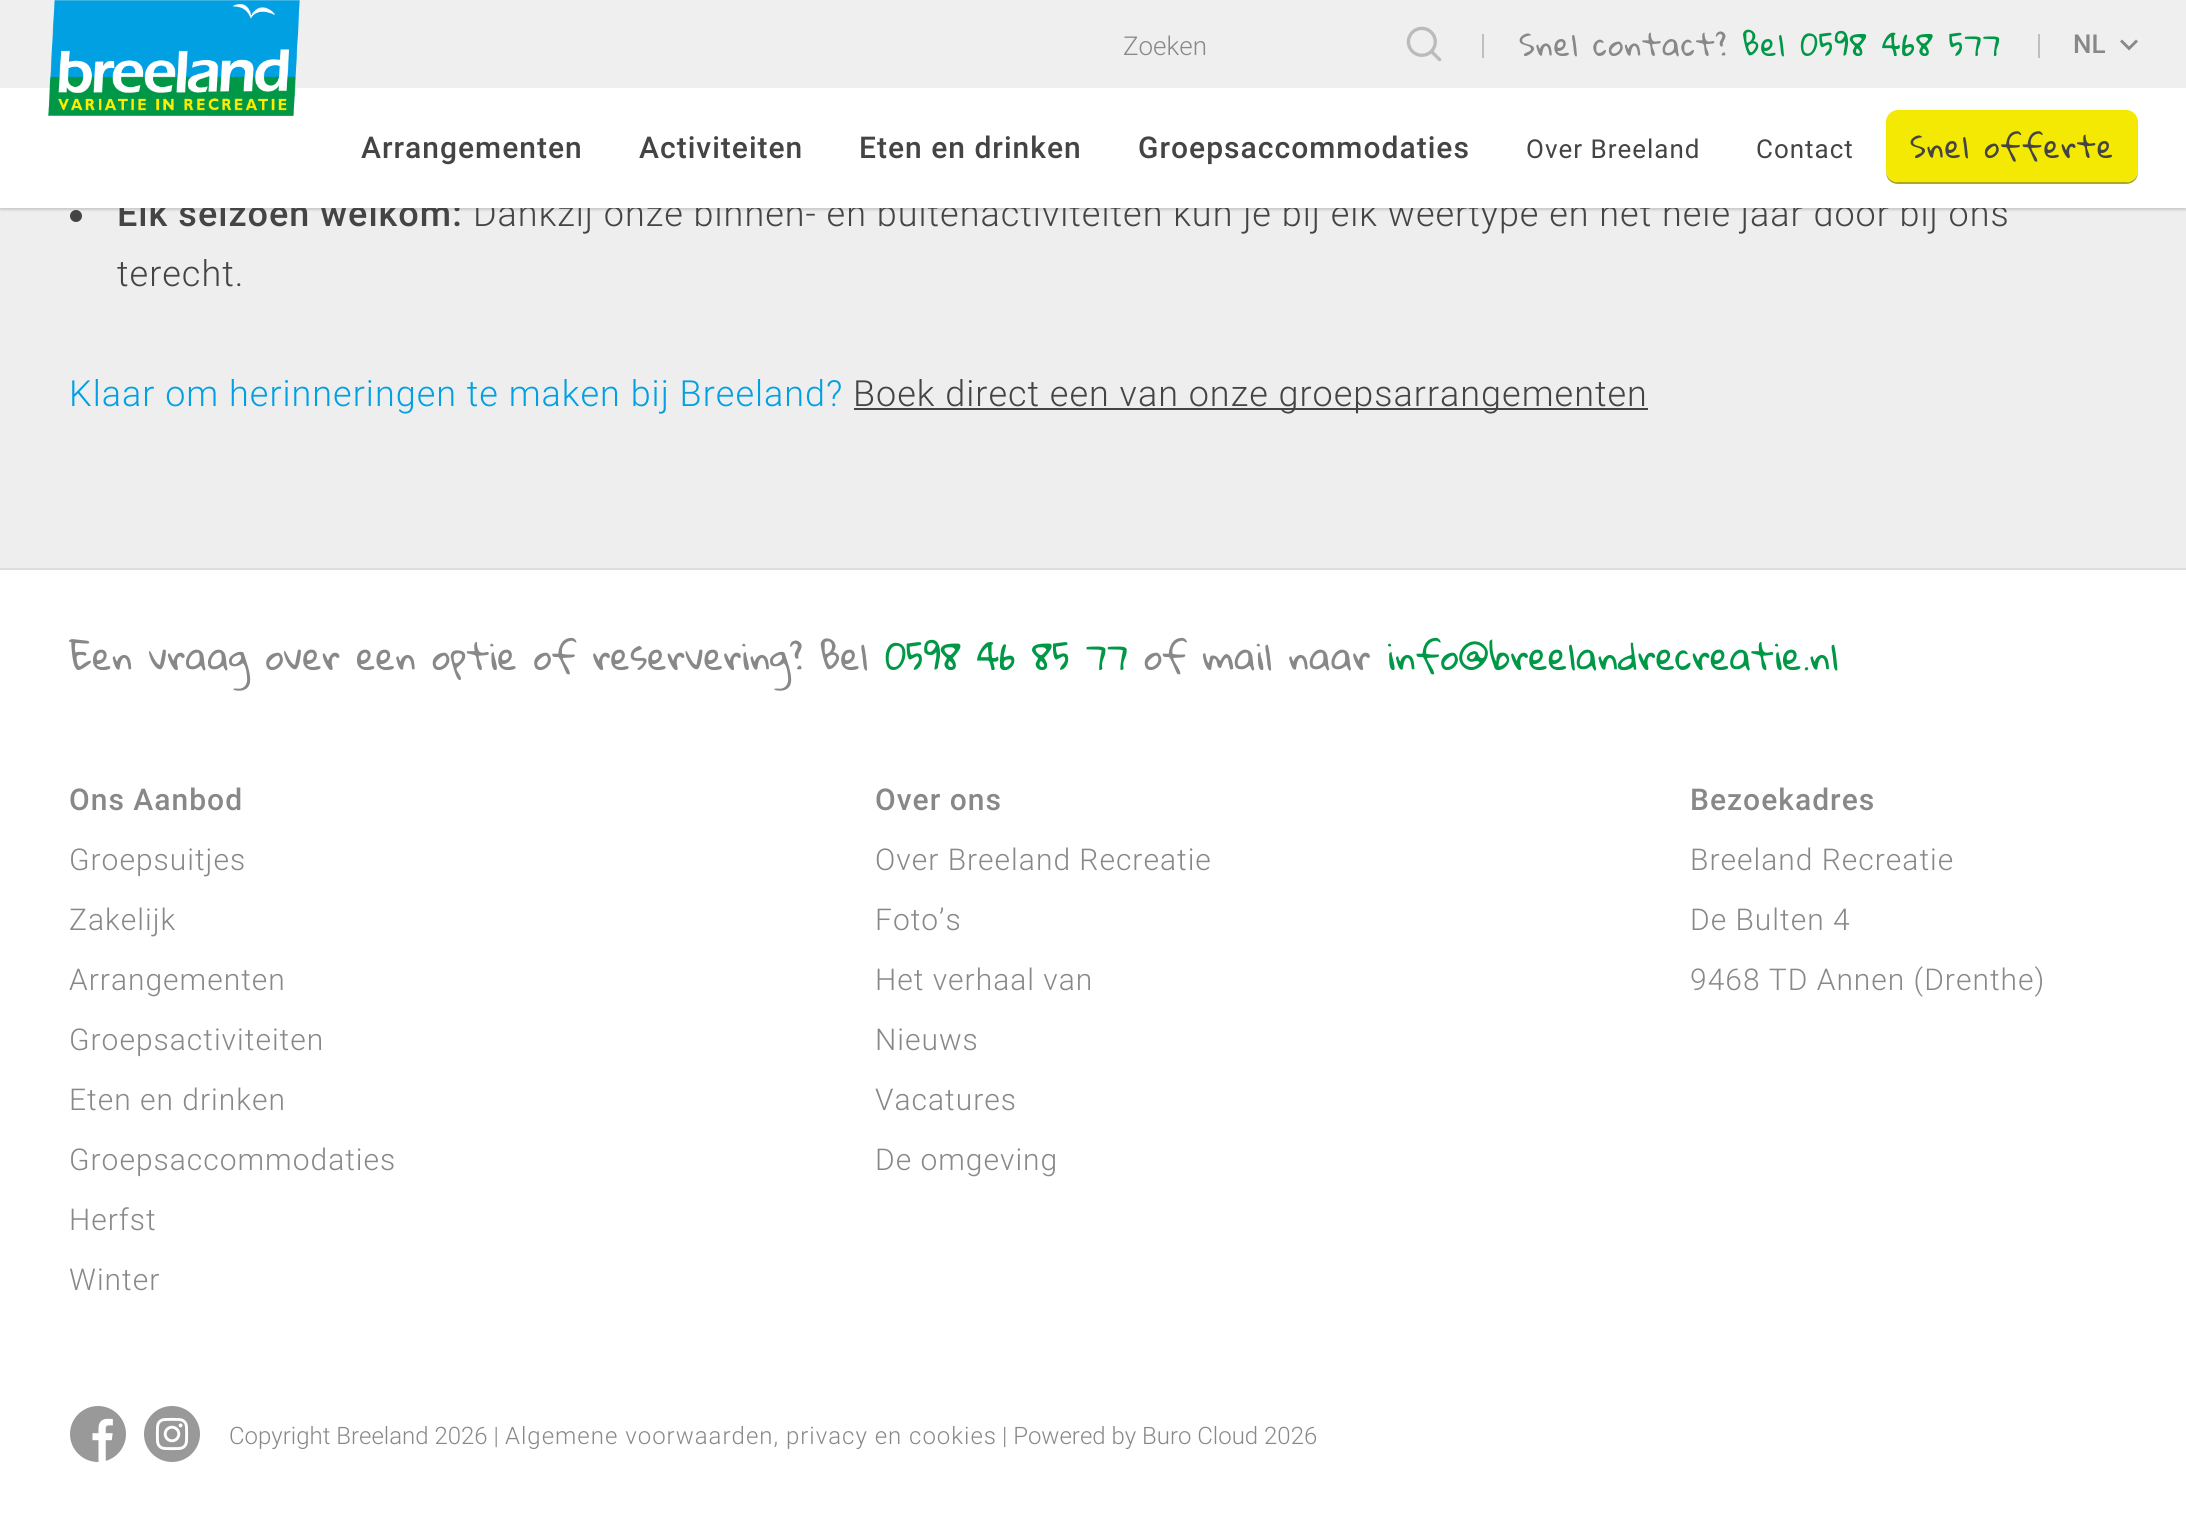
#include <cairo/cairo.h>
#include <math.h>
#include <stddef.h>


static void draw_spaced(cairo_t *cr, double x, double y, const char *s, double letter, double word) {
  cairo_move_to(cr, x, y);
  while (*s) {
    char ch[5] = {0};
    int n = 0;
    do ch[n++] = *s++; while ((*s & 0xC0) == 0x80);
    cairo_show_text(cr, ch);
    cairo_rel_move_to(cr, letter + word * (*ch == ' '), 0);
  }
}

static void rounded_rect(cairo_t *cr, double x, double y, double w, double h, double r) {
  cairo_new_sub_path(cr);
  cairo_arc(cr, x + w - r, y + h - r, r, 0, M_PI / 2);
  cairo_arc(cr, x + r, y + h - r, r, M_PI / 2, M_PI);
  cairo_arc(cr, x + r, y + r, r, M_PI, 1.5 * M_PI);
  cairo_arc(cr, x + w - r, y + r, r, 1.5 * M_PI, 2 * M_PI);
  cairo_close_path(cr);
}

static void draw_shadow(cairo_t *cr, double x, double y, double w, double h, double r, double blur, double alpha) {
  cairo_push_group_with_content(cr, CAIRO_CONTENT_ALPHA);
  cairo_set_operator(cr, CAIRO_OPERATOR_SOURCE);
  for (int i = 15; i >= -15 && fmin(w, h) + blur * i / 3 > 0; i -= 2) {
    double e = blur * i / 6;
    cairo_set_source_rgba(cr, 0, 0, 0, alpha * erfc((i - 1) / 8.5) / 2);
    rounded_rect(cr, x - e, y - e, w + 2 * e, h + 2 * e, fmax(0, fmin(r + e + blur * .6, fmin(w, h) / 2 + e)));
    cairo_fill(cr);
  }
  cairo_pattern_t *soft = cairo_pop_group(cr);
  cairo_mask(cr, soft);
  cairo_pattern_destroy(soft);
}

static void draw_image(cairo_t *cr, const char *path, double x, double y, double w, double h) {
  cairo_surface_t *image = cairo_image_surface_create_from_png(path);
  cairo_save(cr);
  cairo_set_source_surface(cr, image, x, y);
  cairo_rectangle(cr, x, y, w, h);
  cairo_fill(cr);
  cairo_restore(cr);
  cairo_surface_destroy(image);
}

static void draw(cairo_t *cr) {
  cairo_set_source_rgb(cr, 1, 1, 1);
  cairo_paint(cr);
  cairo_set_source_rgb(cr, 238 / 255.0, 238 / 255.0, 238 / 255.0);
  cairo_rectangle(cr, 0, 208, 2186, 360);
  cairo_fill(cr);
  cairo_set_source_rgb(cr, 68 / 255.0, 68 / 255.0, 68 / 255.0);
  cairo_arc(cr, 76, 216, 6, 0, 2 * M_PI);
  cairo_fill(cr);
  cairo_set_source_rgb(cr, 0, 0, 0);
  draw_shadow(cr, 0, 2, 2186, 208, 0, 1, 0.15);
  cairo_set_source_rgb(cr, 239 / 255.0, 239 / 255.0, 239 / 255.0);
  cairo_rectangle(cr, 0, 0, 2186, 88);
  cairo_fill(cr);
  draw_image(cr, "images/2.png", 1406, 26, 36, 36);
  cairo_set_source_rgb(cr, 191 / 255.0, 191 / 255.0, 191 / 255.0);
  cairo_rectangle(cr, 1482, 34, 2, 24);
  cairo_fill(cr);
  cairo_set_source_rgb(cr, 136 / 255.0, 136 / 255.0, 136 / 255.0);
  cairo_new_path(cr);
  cairo_move_to(cr, 2136, 39.5);
  cairo_line_to(cr, 2129, 46.5);
  cairo_line_to(cr, 2122, 39.5);
  cairo_line_to(cr, 2120, 41.5);
  cairo_line_to(cr, 2129, 50.5);
  cairo_line_to(cr, 2138, 41.5);
  cairo_close_path(cr);
  cairo_fill(cr);
  cairo_set_source_rgb(cr, 191 / 255.0, 191 / 255.0, 191 / 255.0);
  cairo_rectangle(cr, 2038, 34, 2, 24);
  cairo_fill(cr);
  cairo_set_source_rgb(cr, 68 / 255.0, 68 / 255.0, 68 / 255.0);
  cairo_rectangle(cr, 854, 408, 794, 2);
  cairo_fill(cr);
  cairo_set_source_rgb(cr, 221 / 255.0, 221 / 255.0, 221 / 255.0);
  cairo_rectangle(cr, 0, 568, 2186, 2);
  cairo_fill(cr);
  draw_image(cr, "images/3.png", 70, 1406, 56, 56);
  draw_image(cr, "images/4.png", 144, 1406, 56, 56);
  cairo_select_font_face(cr, "Roboto Light", CAIRO_FONT_SLANT_NORMAL, CAIRO_FONT_WEIGHT_NORMAL);
  cairo_set_font_size(cr, 26);
  cairo_set_source_rgb(cr, 136 / 255.0, 136 / 255.0, 136 / 255.0);
  cairo_move_to(cr, 1123, 55);
  cairo_show_text(cr, "Zoeken");
  cairo_select_font_face(cr, "Gloria Hallelujah", CAIRO_FONT_SLANT_NORMAL, CAIRO_FONT_WEIGHT_NORMAL);
  cairo_set_font_size(cr, 30);
  draw_spaced(cr, 1519, 56, "Snel contact?", 1, 0);
  cairo_set_source_rgb(cr, 0, 152 / 255.0, 70 / 255.0);
  draw_spaced(cr, 1742, 56, "Bel 0598 468 577", 1, 0);
  cairo_select_font_face(cr, "Roboto Medium", CAIRO_FONT_SLANT_NORMAL, CAIRO_FONT_WEIGHT_NORMAL);
  cairo_set_font_size(cr, 26);
  cairo_set_source_rgb(cr, 136 / 255.0, 136 / 255.0, 136 / 255.0);
  cairo_move_to(cr, 2073, 53);
  cairo_show_text(cr, "NL");
  cairo_set_font_size(cr, 36);
  cairo_set_source_rgb(cr, 68 / 255.0, 68 / 255.0, 68 / 255.0);
  draw_spaced(cr, 117, 226, "Elk seizoen welkom:", 1, 0);
  cairo_select_font_face(cr, "Roboto Light", CAIRO_FONT_SLANT_NORMAL, CAIRO_FONT_WEIGHT_NORMAL);
  draw_spaced(cr, 473, 226, "Dankzij onze binnen- en buitenactiviteiten kun je bij elk weertype én het hele jaar door bij ons", 1, 0);
  cairo_set_source_rgb(cr, 1, 1, 1);
  cairo_rectangle(cr, 0, 88, 2186, 120);
  cairo_fill(cr);
  draw_image(cr, "images/1.png", 48, 0, 252, 116);
  cairo_set_source_rgb(cr, 175 / 255.0, 168 / 255.0, 28 / 255.0);
  cairo_new_path(cr);
  cairo_move_to(cr, 1886, 170);
  cairo_line_to(cr, 1886, 172);
  cairo_curve_to(cr, 1886, 179, 1891, 184, 1898, 184);
  cairo_line_to(cr, 2126, 184);
  cairo_curve_to(cr, 2133, 184, 2138, 179, 2138, 172);
  cairo_line_to(cr, 2138, 170);
  cairo_curve_to(cr, 2138, 177, 2133, 182, 2126, 182);
  cairo_line_to(cr, 1898, 182);
  cairo_curve_to(cr, 1891, 182, 1886, 177, 1886, 170);
  cairo_close_path(cr);
  cairo_fill(cr);
  cairo_set_source_rgb(cr, 244 / 255.0, 233 / 255.0, 3 / 255.0);
  rounded_rect(cr, 1886, 110, 252, 72, 12);
  cairo_fill(cr);
  cairo_select_font_face(cr, "Gloria Hallelujah", CAIRO_FONT_SLANT_NORMAL, CAIRO_FONT_WEIGHT_NORMAL);
  cairo_set_font_size(cr, 30);
  cairo_set_source_rgb(cr, 68 / 255.0, 68 / 255.0, 68 / 255.0);
  draw_spaced(cr, 1910, 158, "Snel offerte", 1, 0);
  cairo_select_font_face(cr, "Roboto", CAIRO_FONT_SLANT_NORMAL, CAIRO_FONT_WEIGHT_NORMAL);
  cairo_set_font_size(cr, 26);
  draw_spaced(cr, 1756, 158, "Contact", 1, 0);
  draw_spaced(cr, 1526, 158, "Over Breeland", 1, 0);
  cairo_select_font_face(cr, "Roboto Medium", CAIRO_FONT_SLANT_NORMAL, CAIRO_FONT_WEIGHT_NORMAL);
  cairo_set_font_size(cr, 30);
  draw_spaced(cr, 1138, 158, "Groepsaccommodaties", 1, 0);
  draw_spaced(cr, 859, 158, "Eten en drinken", 1, 0);
  draw_spaced(cr, 639, 158, "Activiteiten", 1, 0);
  draw_spaced(cr, 361, 158, "Arrangementen", 1, 0);
  cairo_select_font_face(cr, "Roboto Light", CAIRO_FONT_SLANT_NORMAL, CAIRO_FONT_WEIGHT_NORMAL);
  cairo_set_font_size(cr, 36);
  draw_spaced(cr, 117, 286, "terecht.", 1, 0);
  cairo_set_source_rgb(cr, 0, 160 / 255.0, 227 / 255.0);
  draw_spaced(cr, 69, 406, "Klaar om herinneringen te maken bij Breeland?", 1, 0);
  cairo_set_source_rgb(cr, 68 / 255.0, 68 / 255.0, 68 / 255.0);
  draw_spaced(cr, 853, 406, "Boek direct een van onze groepsarrangementen", 1, 0);
  cairo_select_font_face(cr, "Gloria Hallelujah", CAIRO_FONT_SLANT_NORMAL, CAIRO_FONT_WEIGHT_NORMAL);
  cairo_set_source_rgb(cr, 136 / 255.0, 136 / 255.0, 136 / 255.0);
  cairo_move_to(cr, 69, 670);
  cairo_show_text(cr, "Een vraag over een optie of reservering? Bel");
  cairo_set_source_rgb(cr, 0, 152 / 255.0, 70 / 255.0);
  cairo_move_to(cr, 885, 670);
  cairo_show_text(cr, "0598 46 85 77");
  cairo_set_source_rgb(cr, 136 / 255.0, 136 / 255.0, 136 / 255.0);
  cairo_move_to(cr, 1144, 670);
  cairo_show_text(cr, "of mail naar");
  cairo_set_source_rgb(cr, 0, 152 / 255.0, 70 / 255.0);
  cairo_move_to(cr, 1387, 670);
  cairo_show_text(cr, "info@breelandrecreatie.nl");
  cairo_select_font_face(cr, "Roboto Medium", CAIRO_FONT_SLANT_NORMAL, CAIRO_FONT_WEIGHT_NORMAL);
  cairo_set_font_size(cr, 30);
  cairo_set_source_rgb(cr, 136 / 255.0, 136 / 255.0, 136 / 255.0);
  draw_spaced(cr, 69, 810, "Ons Aanbod", 1, 0);
  cairo_select_font_face(cr, "Roboto Light", CAIRO_FONT_SLANT_NORMAL, CAIRO_FONT_WEIGHT_NORMAL);
  draw_spaced(cr, 69, 870, "Groepsuitjes", 1, 0);
  draw_spaced(cr, 69, 930, "Zakelijk", 1, 0);
  draw_spaced(cr, 69, 990, "Arrangementen", 1, 0);
  draw_spaced(cr, 69, 1050, "Groepsactiviteiten", 1, 0);
  draw_spaced(cr, 69, 1110, "Eten en drinken", 1, 0);
  draw_spaced(cr, 69, 1170, "Groepsaccommodaties", 1, 0);
  draw_spaced(cr, 69, 1230, "Herfst", 1, 0);
  draw_spaced(cr, 69, 1290, "Winter", 1, 0);
  cairo_select_font_face(cr, "Roboto Medium", CAIRO_FONT_SLANT_NORMAL, CAIRO_FONT_WEIGHT_NORMAL);
  draw_spaced(cr, 875, 810, "Over ons", 1, 0);
  cairo_select_font_face(cr, "Roboto Light", CAIRO_FONT_SLANT_NORMAL, CAIRO_FONT_WEIGHT_NORMAL);
  draw_spaced(cr, 875, 870, "Over Breeland Recreatie", 1, 0);
  draw_spaced(cr, 875, 930, "Foto’s", 1, 0);
  draw_spaced(cr, 875, 990, "Het verhaal van", 1, 0);
  draw_spaced(cr, 875, 1050, "Nieuws", 1, 0);
  draw_spaced(cr, 875, 1110, "Vacatures", 1, 0);
  draw_spaced(cr, 875, 1170, "De omgeving", 1, 0);
  cairo_select_font_face(cr, "Roboto Medium", CAIRO_FONT_SLANT_NORMAL, CAIRO_FONT_WEIGHT_NORMAL);
  draw_spaced(cr, 1690, 810, "Bezoekadres", 1, 0);
  cairo_select_font_face(cr, "Roboto Light", CAIRO_FONT_SLANT_NORMAL, CAIRO_FONT_WEIGHT_NORMAL);
  draw_spaced(cr, 1690, 870, "Breeland Recreatie", 1, 0);
  draw_spaced(cr, 1690, 930, "De Bulten 4", 1, 0);
  draw_spaced(cr, 1690, 990, "9468 TD Annen (Drenthe)", 1, 0);
  cairo_set_font_size(cr, 24);
  cairo_move_to(cr, 229, 1444);
  cairo_show_text(cr, "Copyright Breeland 2026 |");
  draw_spaced(cr, 505, 1444, "Algemene voorwaarden, privacy en cookies", 1, 0);
  cairo_move_to(cr, 1002, 1444);
  cairo_show_text(cr, "| Powered by Buro Cloud 2026");
}

int main(void) {
  cairo_surface_t *surface = cairo_image_surface_create(CAIRO_FORMAT_RGB24, 2186, 1514);
  cairo_t *cr = cairo_create(surface);
  cairo_font_options_t *options = cairo_font_options_create();
  cairo_font_options_set_hint_metrics(options, CAIRO_HINT_METRICS_OFF);
  cairo_font_options_set_hint_style(options, CAIRO_HINT_STYLE_NONE);
  cairo_set_font_options(cr, options);
  cairo_set_miter_limit(cr, 4);
  draw(cr);
  cairo_surface_write_to_png(surface, "out.png");
  cairo_font_options_destroy(options);
  cairo_destroy(cr);
  cairo_surface_destroy(surface);
  return 0;
}
